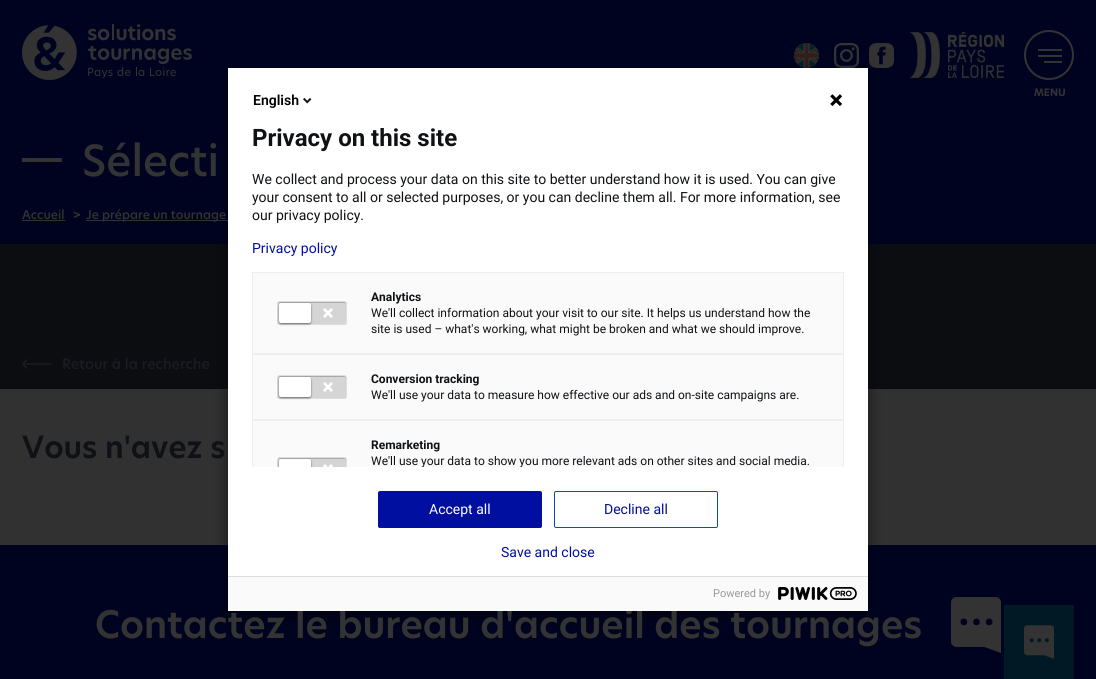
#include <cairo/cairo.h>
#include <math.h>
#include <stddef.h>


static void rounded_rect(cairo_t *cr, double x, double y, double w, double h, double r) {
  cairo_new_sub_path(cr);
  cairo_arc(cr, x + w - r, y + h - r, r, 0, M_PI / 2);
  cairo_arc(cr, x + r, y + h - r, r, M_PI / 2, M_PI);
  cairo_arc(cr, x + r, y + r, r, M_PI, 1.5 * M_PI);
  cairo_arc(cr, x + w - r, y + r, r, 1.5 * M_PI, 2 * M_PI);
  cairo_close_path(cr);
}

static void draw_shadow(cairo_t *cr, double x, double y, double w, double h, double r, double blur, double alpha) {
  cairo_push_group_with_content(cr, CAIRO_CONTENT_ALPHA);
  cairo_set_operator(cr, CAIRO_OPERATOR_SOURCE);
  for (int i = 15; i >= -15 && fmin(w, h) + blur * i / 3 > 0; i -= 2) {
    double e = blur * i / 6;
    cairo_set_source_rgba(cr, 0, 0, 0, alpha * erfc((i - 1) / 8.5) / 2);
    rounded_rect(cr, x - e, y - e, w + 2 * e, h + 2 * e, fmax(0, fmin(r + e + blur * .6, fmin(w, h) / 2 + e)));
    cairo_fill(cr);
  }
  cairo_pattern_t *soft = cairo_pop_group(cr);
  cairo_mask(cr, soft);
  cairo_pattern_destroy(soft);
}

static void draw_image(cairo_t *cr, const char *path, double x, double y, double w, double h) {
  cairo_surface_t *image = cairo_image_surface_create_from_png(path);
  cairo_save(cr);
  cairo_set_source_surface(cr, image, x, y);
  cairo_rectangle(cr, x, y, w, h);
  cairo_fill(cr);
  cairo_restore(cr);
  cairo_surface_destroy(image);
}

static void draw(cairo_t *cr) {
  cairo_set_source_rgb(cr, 49 / 255.0, 49 / 255.0, 50 / 255.0);
  cairo_paint(cr);
  cairo_set_source_rgb(cr, 0, 3 / 255.0, 32 / 255.0);
  cairo_rectangle(cr, 0, 0, 1096, 244);
  cairo_fill(cr);
  draw_image(cr, "images/1.png", 22, 24, 170, 56);
  cairo_set_source_rgb(cr, 51 / 255.0, 51 / 255.0, 51 / 255.0);
  cairo_arc(cr, 806.5, 55.5, 12.5, 0, 2 * M_PI);
  cairo_fill(cr);
  draw_image(cr, "images/2.png", 794, 43, 25, 25);
  draw_image(cr, "images/3.png", 834, 43, 25, 25);
  draw_image(cr, "images/4.png", 869, 43, 25, 25);
  draw_image(cr, "images/5.png", 909, 32, 95, 46);
  cairo_arc(cr, 1049, 55, 24, 0, 2 * M_PI);
  cairo_stroke(cr);
  cairo_rectangle(cr, 1038, 49, 24, 2);
  cairo_fill(cr);
  cairo_rectangle(cr, 1038, 55, 24, 2);
  cairo_fill(cr);
  cairo_rectangle(cr, 1044, 61, 18, 2);
  cairo_fill(cr);
  cairo_rectangle(cr, 22, 158, 40, 4);
  cairo_fill(cr);
  cairo_rectangle(cr, 22, 220, 43, 1);
  cairo_fill(cr);
  cairo_rectangle(cr, 86, 220, 149, 1);
  cairo_fill(cr);
  cairo_set_source_rgb(cr, 12 / 255.0, 13 / 255.0, 17 / 255.0);
  cairo_rectangle(cr, 0, 244, 1096, 145);
  cairo_fill(cr);
  draw_image(cr, "images/6.png", 22, 359, 30, 10);
  cairo_set_source_rgb(cr, 0, 3 / 255.0, 32 / 255.0);
  cairo_rectangle(cr, 0, 545, 1096, 134);
  cairo_fill(cr);
  cairo_set_source_rgb(cr, 0, 0, 0);
  draw_shadow(cr, 228, 73, 640, 543, 0, 7.5, 0.5);
  cairo_set_source_rgb(cr, 1, 1, 1);
  cairo_rectangle(cr, 228, 68, 640, 508);
  cairo_fill(cr);
  draw_image(cr, "images/7.png", 303, 97, 9, 7);
  draw_image(cr, "images/8.png", 830, 94, 13, 13);
  cairo_set_source_rgb(cr, 250 / 255.0, 250 / 255.0, 250 / 255.0);
  cairo_rectangle(cr, 252.5, 272.5, 591, 81);
  cairo_fill_preserve(cr);
  cairo_set_source_rgb(cr, 238 / 255.0, 238 / 255.0, 238 / 255.0);
  cairo_set_line_width(cr, 1);
  cairo_stroke(cr);
  cairo_set_source_rgb(cr, 213 / 255.0, 213 / 255.0, 213 / 255.0);
  rounded_rect(cr, 277, 301, 70, 24, 3);
  cairo_fill(cr);
  cairo_set_source_rgb(cr, 170 / 255.0, 170 / 255.0, 170 / 255.0);
  cairo_new_path(cr);
  cairo_move_to(cr, 280, 303);
  cairo_line_to(cr, 345, 303);
  cairo_line_to(cr, 346, 305);
  cairo_curve_to(cr, 346, 299, 337, 302, 333, 302);
  cairo_line_to(cr, 291, 302);
  cairo_curve_to(cr, 287, 302, 278, 299, 278, 305);
  cairo_curve_to(cr, 278, 304, 279, 303, 280, 303);
  cairo_close_path(cr);
  cairo_fill(cr);
  rounded_rect(cr, 277.5, 301.5, 69, 23, 2.5);
  cairo_set_source_rgb(cr, 221 / 255.0, 221 / 255.0, 221 / 255.0);
  cairo_stroke(cr);
  cairo_set_source_rgb(cr, 0, 0, 0);
  draw_shadow(cr, 279, 304, 32, 20, 2, 1, 0.5);
  cairo_set_source_rgb(cr, 1, 1, 1);
  rounded_rect(cr, 279, 303, 32, 20, 2);
  cairo_fill(cr);
  draw_image(cr, "images/9.png", 323, 308, 10, 10);
  cairo_set_source_rgb(cr, 250 / 255.0, 250 / 255.0, 250 / 255.0);
  cairo_rectangle(cr, 252.5, 354.5, 591, 65);
  cairo_fill_preserve(cr);
  cairo_set_source_rgb(cr, 238 / 255.0, 238 / 255.0, 238 / 255.0);
  cairo_stroke(cr);
  cairo_set_source_rgb(cr, 213 / 255.0, 213 / 255.0, 213 / 255.0);
  rounded_rect(cr, 277, 375, 70, 24, 3);
  cairo_fill(cr);
  cairo_set_source_rgb(cr, 170 / 255.0, 170 / 255.0, 170 / 255.0);
  cairo_new_path(cr);
  cairo_move_to(cr, 280, 377);
  cairo_line_to(cr, 345, 377);
  cairo_line_to(cr, 346, 379);
  cairo_curve_to(cr, 346, 373, 337, 376, 333, 376);
  cairo_line_to(cr, 291, 376);
  cairo_curve_to(cr, 287, 376, 278, 373, 278, 379);
  cairo_curve_to(cr, 278, 378, 279, 377, 280, 377);
  cairo_close_path(cr);
  cairo_fill(cr);
  rounded_rect(cr, 277.5, 375.5, 69, 23, 2.5);
  cairo_set_source_rgb(cr, 221 / 255.0, 221 / 255.0, 221 / 255.0);
  cairo_stroke(cr);
  cairo_set_source_rgb(cr, 0, 0, 0);
  draw_shadow(cr, 279, 378, 32, 20, 2, 1, 0.5);
  cairo_set_source_rgb(cr, 1, 1, 1);
  rounded_rect(cr, 279, 377, 32, 20, 2);
  cairo_fill(cr);
  draw_image(cr, "images/9.png", 323, 382, 10, 10);
  cairo_set_source_rgb(cr, 250 / 255.0, 250 / 255.0, 250 / 255.0);
  cairo_rectangle(cr, 253, 421, 590, 46);
  cairo_fill(cr);
  cairo_save(cr);
  cairo_rectangle(cr, 252, 272, 592, 195);
  cairo_clip(cr);
  cairo_rectangle(cr, 252.5, 420.5, 591, 97);
  cairo_set_source_rgb(cr, 238 / 255.0, 238 / 255.0, 238 / 255.0);
  cairo_stroke(cr);
  cairo_restore(cr);
  cairo_set_source_rgb(cr, 213 / 255.0, 213 / 255.0, 213 / 255.0);
  cairo_new_path(cr);
  cairo_move_to(cr, 280, 457);
  cairo_line_to(cr, 344, 457);
  cairo_curve_to(cr, 345.5, 457, 347, 458.5, 347, 460);
  cairo_line_to(cr, 347, 467);
  cairo_line_to(cr, 277, 467);
  cairo_line_to(cr, 277, 460);
  cairo_curve_to(cr, 277, 458.5, 278.5, 457, 280, 457);
  cairo_close_path(cr);
  cairo_fill(cr);
  cairo_set_source_rgb(cr, 170 / 255.0, 170 / 255.0, 170 / 255.0);
  cairo_new_path(cr);
  cairo_move_to(cr, 280, 459);
  cairo_line_to(cr, 345, 459);
  cairo_line_to(cr, 346, 461);
  cairo_curve_to(cr, 346, 455, 337, 458, 333, 458);
  cairo_line_to(cr, 291, 458);
  cairo_curve_to(cr, 287, 458, 278, 455, 278, 461);
  cairo_curve_to(cr, 278, 460, 279, 459, 280, 459);
  cairo_close_path(cr);
  cairo_fill(cr);
  cairo_save(cr);
  cairo_rectangle(cr, 252, 272, 592, 195);
  cairo_clip(cr);
  rounded_rect(cr, 277.5, 457.5, 69, 23, 2.5);
  cairo_set_source_rgb(cr, 221 / 255.0, 221 / 255.0, 221 / 255.0);
  cairo_stroke(cr);
  cairo_restore(cr);
  cairo_save(cr);
  cairo_rectangle(cr, 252, 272, 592, 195);
  cairo_clip(cr);
  cairo_set_source_rgb(cr, 0, 0, 0);
  draw_shadow(cr, 279, 460, 32, 20, 2, 1, 0.5);
  cairo_restore(cr);
  cairo_set_source_rgb(cr, 1, 1, 1);
  cairo_new_path(cr);
  cairo_move_to(cr, 281, 459);
  cairo_line_to(cr, 309, 459);
  cairo_curve_to(cr, 310, 459, 311, 460, 311, 461);
  cairo_line_to(cr, 311, 467);
  cairo_line_to(cr, 279, 467);
  cairo_line_to(cr, 279, 461);
  cairo_curve_to(cr, 279, 460, 280, 459, 281, 459);
  cairo_close_path(cr);
  cairo_fill(cr);
  draw_image(cr, "images/10.png", 323, 464, 10, 3);
  cairo_set_source_rgb(cr, 0, 15 / 255.0, 160 / 255.0);
  rounded_rect(cr, 378.5, 491.5, 163, 36, 1.5);
  cairo_fill_preserve(cr);
  cairo_stroke(cr);
  rounded_rect(cr, 554.5, 491.5, 163, 36, 1.5);
  cairo_set_source_rgb(cr, 11 / 255.0, 75 / 255.0, 179 / 255.0);
  cairo_stroke(cr);
  cairo_set_source_rgb(cr, 221 / 255.0, 221 / 255.0, 221 / 255.0);
  cairo_rectangle(cr, 228, 576, 640, 1);
  cairo_fill(cr);
  draw_image(cr, "images/12.png", 951, 597, 50, 56);
  cairo_set_source_rgb(cr, 0, 25 / 255.0, 36 / 255.0);
  cairo_rectangle(cr, 1004, 605, 70, 74);
  cairo_fill(cr);
  draw_image(cr, "images/13.png", 1024, 625, 30, 34);
  cairo_select_font_face(cr, "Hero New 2", CAIRO_FONT_SLANT_NORMAL, CAIRO_FONT_WEIGHT_BOLD);
  cairo_set_font_size(cr, 10);
  cairo_set_source_rgb(cr, 51 / 255.0, 51 / 255.0, 51 / 255.0);
  cairo_move_to(cr, 1034, 96);
  cairo_show_text(cr, "MENU");
  cairo_select_font_face(cr, "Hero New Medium", CAIRO_FONT_SLANT_NORMAL, CAIRO_FONT_WEIGHT_NORMAL);
  cairo_set_font_size(cr, 42);
  cairo_move_to(cr, 82, 176);
  cairo_show_text(cr, "Sélecti");
  cairo_set_font_size(cr, 12);
  cairo_move_to(cr, 22, 219);
  cairo_show_text(cr, "Accueil");
  cairo_select_font_face(cr, "Hero New", CAIRO_FONT_SLANT_NORMAL, CAIRO_FONT_WEIGHT_BOLD);
  cairo_set_font_size(cr, 11);
  cairo_move_to(cr, 73, 219);
  cairo_show_text(cr, ">");
  cairo_select_font_face(cr, "Hero New Medium", CAIRO_FONT_SLANT_NORMAL, CAIRO_FONT_WEIGHT_NORMAL);
  cairo_set_font_size(cr, 12);
  cairo_move_to(cr, 86, 219);
  cairo_show_text(cr, "Je prépare un tournage");
  cairo_set_font_size(cr, 14);
  cairo_set_source_rgb(cr, 25 / 255.0, 28 / 255.0, 34 / 255.0);
  cairo_move_to(cr, 62, 369);
  cairo_show_text(cr, "Retour à la recherche");
  cairo_select_font_face(cr, "Hero New SemiBold", CAIRO_FONT_SLANT_NORMAL, CAIRO_FONT_WEIGHT_NORMAL);
  cairo_set_font_size(cr, 30);
  cairo_set_source_rgb(cr, 15 / 255.0, 17 / 255.0, 20 / 255.0);
  cairo_move_to(cr, 22, 458);
  cairo_show_text(cr, "Vous n'avez s");
  cairo_select_font_face(cr, "Roboto SemiBold", CAIRO_FONT_SLANT_NORMAL, CAIRO_FONT_WEIGHT_NORMAL);
  cairo_set_font_size(cr, 14);
  cairo_set_source_rgb(cr, 0, 0, 0);
  cairo_move_to(cr, 253, 105);
  cairo_show_text(cr, "English");
  cairo_select_font_face(cr, "Roboto", CAIRO_FONT_SLANT_NORMAL, CAIRO_FONT_WEIGHT_BOLD);
  cairo_set_font_size(cr, 24);
  cairo_set_source_rgb(cr, 15 / 255.0, 17 / 255.0, 20 / 255.0);
  cairo_move_to(cr, 252, 146);
  cairo_show_text(cr, "Privacy on this site");
  cairo_select_font_face(cr, "Roboto", CAIRO_FONT_SLANT_NORMAL, CAIRO_FONT_WEIGHT_NORMAL);
  cairo_set_font_size(cr, 14);
  cairo_move_to(cr, 252, 184);
  cairo_show_text(cr, "We collect and process your data on this site to better understand how it is used. You can give");
  cairo_move_to(cr, 252, 202);
  cairo_show_text(cr, "your consent to all or selected purposes, or you can decline them all. For more information, see");
  cairo_move_to(cr, 252, 220);
  cairo_show_text(cr, "our privacy policy.");
  cairo_set_source_rgb(cr, 0, 15 / 255.0, 160 / 255.0);
  cairo_move_to(cr, 252, 253);
  cairo_show_text(cr, "Privacy policy");
  cairo_select_font_face(cr, "Roboto", CAIRO_FONT_SLANT_NORMAL, CAIRO_FONT_WEIGHT_BOLD);
  cairo_set_font_size(cr, 12);
  cairo_set_source_rgb(cr, 15 / 255.0, 17 / 255.0, 20 / 255.0);
  cairo_move_to(cr, 371, 301);
  cairo_show_text(cr, "Analytics");
  cairo_select_font_face(cr, "Roboto", CAIRO_FONT_SLANT_NORMAL, CAIRO_FONT_WEIGHT_NORMAL);
  cairo_move_to(cr, 371, 317);
  cairo_show_text(cr, "We'll collect information about your visit to our site. It helps us understand how the");
  cairo_move_to(cr, 371, 333);
  cairo_show_text(cr, "site is used – what's working, what might be broken and what we should improve.");
  cairo_select_font_face(cr, "Roboto", CAIRO_FONT_SLANT_NORMAL, CAIRO_FONT_WEIGHT_BOLD);
  cairo_move_to(cr, 371, 383);
  cairo_show_text(cr, "Conversion tracking");
  cairo_select_font_face(cr, "Roboto", CAIRO_FONT_SLANT_NORMAL, CAIRO_FONT_WEIGHT_NORMAL);
  cairo_move_to(cr, 371, 399);
  cairo_show_text(cr, "We'll use your data to measure how effective our ads and on-site campaigns are.");
  cairo_select_font_face(cr, "Roboto", CAIRO_FONT_SLANT_NORMAL, CAIRO_FONT_WEIGHT_BOLD);
  cairo_move_to(cr, 371, 449);
  cairo_show_text(cr, "Remarketing");
  cairo_save(cr);
  cairo_rectangle(cr, 252, 272, 592, 195);
  cairo_clip(cr);
  cairo_select_font_face(cr, "Roboto", CAIRO_FONT_SLANT_NORMAL, CAIRO_FONT_WEIGHT_NORMAL);
  cairo_move_to(cr, 371, 465);
  cairo_show_text(cr, "We'll use your data to show you more relevant ads on other sites and social media.");
  cairo_restore(cr);
  cairo_select_font_face(cr, "Roboto", CAIRO_FONT_SLANT_NORMAL, CAIRO_FONT_WEIGHT_NORMAL);
  cairo_set_font_size(cr, 14);
  cairo_set_source_rgb(cr, 1, 1, 1);
  cairo_move_to(cr, 429, 514);
  cairo_show_text(cr, "Accept all");
  cairo_set_source_rgb(cr, 0, 15 / 255.0, 160 / 255.0);
  cairo_move_to(cr, 604, 514);
  cairo_show_text(cr, "Decline all");
  cairo_move_to(cr, 501, 557);
  cairo_show_text(cr, "Save and close");
  cairo_select_font_face(cr, "Hero New SemiBold", CAIRO_FONT_SLANT_NORMAL, CAIRO_FONT_WEIGHT_NORMAL);
  cairo_set_font_size(cr, 37.1);
  cairo_set_source_rgb(cr, 51 / 255.0, 51 / 255.0, 51 / 255.0);
  cairo_move_to(cr, 95, 638);
  cairo_show_text(cr, "Contactez le bureau d'accueil des tournages");
  cairo_set_source_rgb(cr, 250 / 255.0, 250 / 255.0, 250 / 255.0);
  cairo_rectangle(cr, 228, 577, 640, 34);
  cairo_fill(cr);
  draw_image(cr, "images/11.png", 778, 587, 79, 13);
  cairo_select_font_face(cr, "Roboto", CAIRO_FONT_SLANT_NORMAL, CAIRO_FONT_WEIGHT_NORMAL);
  cairo_set_font_size(cr, 11);
  cairo_set_source_rgb(cr, 153 / 255.0, 153 / 255.0, 153 / 255.0);
  cairo_move_to(cr, 713, 597);
  cairo_show_text(cr, "Powered by");
}

int main(void) {
  cairo_surface_t *surface = cairo_image_surface_create(CAIRO_FORMAT_RGB24, 1096, 679);
  cairo_t *cr = cairo_create(surface);
  cairo_font_options_t *options = cairo_font_options_create();
  cairo_font_options_set_hint_metrics(options, CAIRO_HINT_METRICS_OFF);
  cairo_font_options_set_hint_style(options, CAIRO_HINT_STYLE_NONE);
  cairo_set_font_options(cr, options);
  cairo_set_miter_limit(cr, 4);
  draw(cr);
  cairo_surface_write_to_png(surface, "out.png");
  cairo_font_options_destroy(options);
  cairo_destroy(cr);
  cairo_surface_destroy(surface);
  return 0;
}
